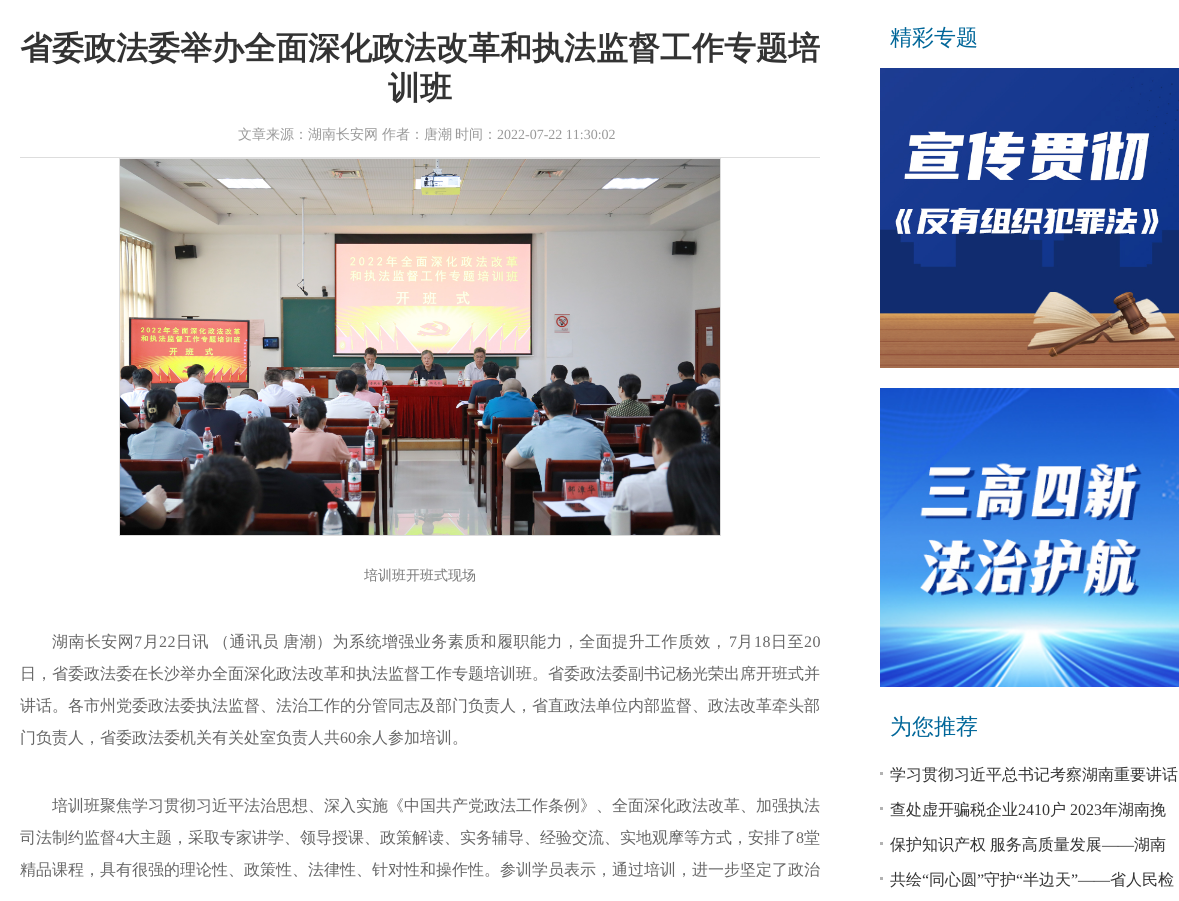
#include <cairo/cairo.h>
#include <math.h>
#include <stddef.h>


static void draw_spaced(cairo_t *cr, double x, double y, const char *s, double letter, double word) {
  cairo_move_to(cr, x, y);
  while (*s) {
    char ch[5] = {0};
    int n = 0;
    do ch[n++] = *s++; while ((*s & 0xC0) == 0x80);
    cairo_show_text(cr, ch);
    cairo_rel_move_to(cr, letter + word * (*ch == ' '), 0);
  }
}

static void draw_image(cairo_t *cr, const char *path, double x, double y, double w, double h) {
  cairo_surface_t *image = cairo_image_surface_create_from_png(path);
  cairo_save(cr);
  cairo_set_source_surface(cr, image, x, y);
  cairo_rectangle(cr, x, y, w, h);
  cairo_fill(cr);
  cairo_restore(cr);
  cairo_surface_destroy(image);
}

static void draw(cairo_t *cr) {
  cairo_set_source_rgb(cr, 1, 1, 1);
  cairo_paint(cr);
  cairo_set_source_rgb(cr, 221 / 255.0, 221 / 255.0, 221 / 255.0);
  cairo_rectangle(cr, 20, 157, 800, 1);
  cairo_fill(cr);
  cairo_rectangle(cr, 119.5, 158.5, 601, 377);
  cairo_set_line_width(cr, 1);
  cairo_stroke(cr);
  draw_image(cr, "images/1.png", 120, 159, 600, 376);
  draw_image(cr, "images/2.png", 880, 68, 299, 300);
  draw_image(cr, "images/3.png", 880, 388, 299, 299);
  cairo_set_source_rgb(cr, 178 / 255.0, 178 / 255.0, 178 / 255.0);
  cairo_rectangle(cr, 880, 772, 3, 3);
  cairo_fill(cr);
  cairo_rectangle(cr, 880, 807, 3, 3);
  cairo_fill(cr);
  cairo_rectangle(cr, 880, 842, 3, 3);
  cairo_fill(cr);
  cairo_rectangle(cr, 880, 877, 3, 3);
  cairo_fill(cr);
  cairo_select_font_face(cr, "WenQuanYi Zen Hei", CAIRO_FONT_SLANT_NORMAL, CAIRO_FONT_WEIGHT_BOLD);
  cairo_set_font_size(cr, 32);
  cairo_set_source_rgb(cr, 51 / 255.0, 51 / 255.0, 51 / 255.0);
  cairo_move_to(cr, 20, 59);
  cairo_show_text(cr, "省委政法委举办全面深化政法改革和执法监督工作专题培");
  cairo_move_to(cr, 388, 99);
  cairo_show_text(cr, "训班");
  cairo_select_font_face(cr, "WenQuanYi Zen Hei Medium", CAIRO_FONT_SLANT_NORMAL, CAIRO_FONT_WEIGHT_NORMAL);
  cairo_set_font_size(cr, 14);
  cairo_set_source_rgb(cr, 153 / 255.0, 153 / 255.0, 153 / 255.0);
  cairo_move_to(cr, 238, 139);
  cairo_show_text(cr, "文章来源：湖南长安网");
  cairo_move_to(cr, 382, 139);
  cairo_show_text(cr, "作者：唐潮");
  cairo_move_to(cr, 455, 139);
  cairo_show_text(cr, "时间：");
  cairo_select_font_face(cr, "Liberation Serif", CAIRO_FONT_SLANT_NORMAL, CAIRO_FONT_WEIGHT_NORMAL);
  cairo_move_to(cr, 497, 139);
  cairo_show_text(cr, "2022-07-22 11:30:02");
  cairo_select_font_face(cr, "WenQuanYi Zen Hei Medium", CAIRO_FONT_SLANT_NORMAL, CAIRO_FONT_WEIGHT_NORMAL);
  cairo_set_source_rgb(cr, 119 / 255.0, 119 / 255.0, 119 / 255.0);
  cairo_move_to(cr, 364, 580);
  cairo_show_text(cr, "培训班开班式现场");
  cairo_set_font_size(cr, 16);
  cairo_set_source_rgb(cr, 102 / 255.0, 102 / 255.0, 102 / 255.0);
  draw_spaced(cr, 52, 647, "湖南长安网", 0.45, 0);
  cairo_select_font_face(cr, "Liberation Serif", CAIRO_FONT_SLANT_NORMAL, CAIRO_FONT_WEIGHT_NORMAL);
  draw_spaced(cr, 134, 647, "7", 0.45, 0);
  cairo_select_font_face(cr, "WenQuanYi Zen Hei Medium", CAIRO_FONT_SLANT_NORMAL, CAIRO_FONT_WEIGHT_NORMAL);
  draw_spaced(cr, 143, 647, "月", 0.45, 0);
  cairo_select_font_face(cr, "Liberation Serif", CAIRO_FONT_SLANT_NORMAL, CAIRO_FONT_WEIGHT_NORMAL);
  draw_spaced(cr, 159, 647, "22", 0.45, 0);
  cairo_select_font_face(cr, "WenQuanYi Zen Hei Medium", CAIRO_FONT_SLANT_NORMAL, CAIRO_FONT_WEIGHT_NORMAL);
  draw_spaced(cr, 176, 647, "日讯 （通讯员 唐潮）为系统增强业务素质和履职能力，全面提升工作质效，", 0.45, -1);
  cairo_select_font_face(cr, "Liberation Serif", CAIRO_FONT_SLANT_NORMAL, CAIRO_FONT_WEIGHT_NORMAL);
  draw_spaced(cr, 729, 647, "7", 0.45, 0);
  cairo_select_font_face(cr, "WenQuanYi Zen Hei Medium", CAIRO_FONT_SLANT_NORMAL, CAIRO_FONT_WEIGHT_NORMAL);
  draw_spaced(cr, 737, 647, "月", 0.45, 0);
  cairo_select_font_face(cr, "Liberation Serif", CAIRO_FONT_SLANT_NORMAL, CAIRO_FONT_WEIGHT_NORMAL);
  draw_spaced(cr, 754, 647, "18", 0.45, 0);
  cairo_select_font_face(cr, "WenQuanYi Zen Hei Medium", CAIRO_FONT_SLANT_NORMAL, CAIRO_FONT_WEIGHT_NORMAL);
  draw_spaced(cr, 771, 647, "日至", 0.45, 0);
  cairo_select_font_face(cr, "Liberation Serif", CAIRO_FONT_SLANT_NORMAL, CAIRO_FONT_WEIGHT_NORMAL);
  draw_spaced(cr, 804, 647, "20", 0.45, 0);
  cairo_select_font_face(cr, "WenQuanYi Zen Hei Medium", CAIRO_FONT_SLANT_NORMAL, CAIRO_FONT_WEIGHT_NORMAL);
  cairo_move_to(cr, 20, 679);
  cairo_show_text(cr, "日，省委政法委在长沙举办全面深化政法改革和执法监督工作专题培训班。省委政法委副书记杨光荣出席开班式并");
  cairo_move_to(cr, 20, 711);
  cairo_show_text(cr, "讲话。各市州党委政法委执法监督、法治工作的分管同志及部门负责人，省直政法单位内部监督、政法改革牵头部");
  cairo_move_to(cr, 20, 743);
  cairo_show_text(cr, "门负责人，省委政法委机关有关处室负责人共");
  cairo_select_font_face(cr, "Liberation Serif", CAIRO_FONT_SLANT_NORMAL, CAIRO_FONT_WEIGHT_NORMAL);
  cairo_move_to(cr, 340, 743);
  cairo_show_text(cr, "60");
  cairo_select_font_face(cr, "WenQuanYi Zen Hei Medium", CAIRO_FONT_SLANT_NORMAL, CAIRO_FONT_WEIGHT_NORMAL);
  cairo_move_to(cr, 356, 743);
  cairo_show_text(cr, "余人参加培训。");
  cairo_move_to(cr, 52, 811);
  cairo_show_text(cr, "培训班聚焦学习贯彻习近平法治思想、深入实施《中国共产党政法工作条例》、全面深化政法改革、加强执法");
  cairo_move_to(cr, 20, 843);
  cairo_show_text(cr, "司法制约监督");
  cairo_select_font_face(cr, "Liberation Serif", CAIRO_FONT_SLANT_NORMAL, CAIRO_FONT_WEIGHT_NORMAL);
  cairo_move_to(cr, 116, 843);
  cairo_show_text(cr, "4");
  cairo_select_font_face(cr, "WenQuanYi Zen Hei Medium", CAIRO_FONT_SLANT_NORMAL, CAIRO_FONT_WEIGHT_NORMAL);
  cairo_move_to(cr, 124, 843);
  cairo_show_text(cr, "大主题，采取专家讲学、领导授课、政策解读、实务辅导、经验交流、实地观摩等方式，安排了");
  cairo_select_font_face(cr, "Liberation Serif", CAIRO_FONT_SLANT_NORMAL, CAIRO_FONT_WEIGHT_NORMAL);
  cairo_move_to(cr, 796, 843);
  cairo_show_text(cr, "8");
  cairo_select_font_face(cr, "WenQuanYi Zen Hei Medium", CAIRO_FONT_SLANT_NORMAL, CAIRO_FONT_WEIGHT_NORMAL);
  cairo_move_to(cr, 804, 843);
  cairo_show_text(cr, "堂");
  cairo_move_to(cr, 20, 875);
  cairo_show_text(cr, "精品课程，具有很强的理论性、政策性、法律性、针对性和操作性。参训学员表示，通过培训，进一步坚定了政治");
  cairo_set_font_size(cr, 22);
  cairo_set_source_rgb(cr, 0, 102 / 255.0, 153 / 255.0);
  cairo_move_to(cr, 890, 45);
  cairo_show_text(cr, "精彩专题");
  cairo_move_to(cr, 890, 734);
  cairo_show_text(cr, "为您推荐");
  cairo_set_font_size(cr, 16);
  cairo_set_source_rgb(cr, 51 / 255.0, 51 / 255.0, 51 / 255.0);
  cairo_move_to(cr, 890, 780);
  cairo_show_text(cr, "学习贯彻习近平总书记考察湖南重要讲话");
  cairo_move_to(cr, 890, 815);
  cairo_show_text(cr, "查处虚开骗税企业");
  cairo_select_font_face(cr, "Liberation Serif", CAIRO_FONT_SLANT_NORMAL, CAIRO_FONT_WEIGHT_NORMAL);
  cairo_move_to(cr, 1018, 815);
  cairo_show_text(cr, "2410");
  cairo_select_font_face(cr, "WenQuanYi Zen Hei Medium", CAIRO_FONT_SLANT_NORMAL, CAIRO_FONT_WEIGHT_NORMAL);
  cairo_move_to(cr, 1050, 815);
  cairo_show_text(cr, "户");
  cairo_select_font_face(cr, "Liberation Serif", CAIRO_FONT_SLANT_NORMAL, CAIRO_FONT_WEIGHT_NORMAL);
  cairo_move_to(cr, 1070, 815);
  cairo_show_text(cr, "2023");
  cairo_select_font_face(cr, "WenQuanYi Zen Hei Medium", CAIRO_FONT_SLANT_NORMAL, CAIRO_FONT_WEIGHT_NORMAL);
  cairo_move_to(cr, 1102, 815);
  cairo_show_text(cr, "年湖南挽");
  draw_spaced(cr, 890, 850, "保护知识产权 服务高质量发展", 0, -1);
  cairo_select_font_face(cr, "Liberation Serif", CAIRO_FONT_SLANT_NORMAL, CAIRO_FONT_WEIGHT_NORMAL);
  cairo_move_to(cr, 1102, 850);
  cairo_show_text(cr, "——");
  cairo_select_font_face(cr, "WenQuanYi Zen Hei Medium", CAIRO_FONT_SLANT_NORMAL, CAIRO_FONT_WEIGHT_NORMAL);
  cairo_move_to(cr, 1134, 850);
  cairo_show_text(cr, "湖南");
  cairo_move_to(cr, 890, 885);
  cairo_show_text(cr, "共绘");
  cairo_select_font_face(cr, "Liberation Serif", CAIRO_FONT_SLANT_NORMAL, CAIRO_FONT_WEIGHT_NORMAL);
  cairo_move_to(cr, 922, 885);
  cairo_show_text(cr, "“");
  cairo_select_font_face(cr, "WenQuanYi Zen Hei Medium", CAIRO_FONT_SLANT_NORMAL, CAIRO_FONT_WEIGHT_NORMAL);
  cairo_move_to(cr, 929, 885);
  cairo_show_text(cr, "同心圆");
  cairo_select_font_face(cr, "Liberation Serif", CAIRO_FONT_SLANT_NORMAL, CAIRO_FONT_WEIGHT_NORMAL);
  cairo_move_to(cr, 977, 885);
  cairo_show_text(cr, "”");
  cairo_select_font_face(cr, "WenQuanYi Zen Hei Medium", CAIRO_FONT_SLANT_NORMAL, CAIRO_FONT_WEIGHT_NORMAL);
  cairo_move_to(cr, 984, 885);
  cairo_show_text(cr, "守护");
  cairo_select_font_face(cr, "Liberation Serif", CAIRO_FONT_SLANT_NORMAL, CAIRO_FONT_WEIGHT_NORMAL);
  cairo_move_to(cr, 1016, 885);
  cairo_show_text(cr, "“");
  cairo_select_font_face(cr, "WenQuanYi Zen Hei Medium", CAIRO_FONT_SLANT_NORMAL, CAIRO_FONT_WEIGHT_NORMAL);
  cairo_move_to(cr, 1023, 885);
  cairo_show_text(cr, "半边天");
  cairo_select_font_face(cr, "Liberation Serif", CAIRO_FONT_SLANT_NORMAL, CAIRO_FONT_WEIGHT_NORMAL);
  cairo_move_to(cr, 1071, 885);
  cairo_show_text(cr, "”——");
  cairo_select_font_face(cr, "WenQuanYi Zen Hei Medium", CAIRO_FONT_SLANT_NORMAL, CAIRO_FONT_WEIGHT_NORMAL);
  cairo_move_to(cr, 1110, 885);
  cairo_show_text(cr, "省人民检");
}

int main(void) {
  cairo_surface_t *surface = cairo_image_surface_create(CAIRO_FORMAT_RGB24, 1179, 901);
  cairo_t *cr = cairo_create(surface);
  cairo_font_options_t *options = cairo_font_options_create();
  cairo_font_options_set_hint_metrics(options, CAIRO_HINT_METRICS_OFF);
  cairo_font_options_set_hint_style(options, CAIRO_HINT_STYLE_NONE);
  cairo_set_font_options(cr, options);
  cairo_set_miter_limit(cr, 4);
  draw(cr);
  cairo_surface_write_to_png(surface, "out.png");
  cairo_font_options_destroy(options);
  cairo_destroy(cr);
  cairo_surface_destroy(surface);
  return 0;
}
